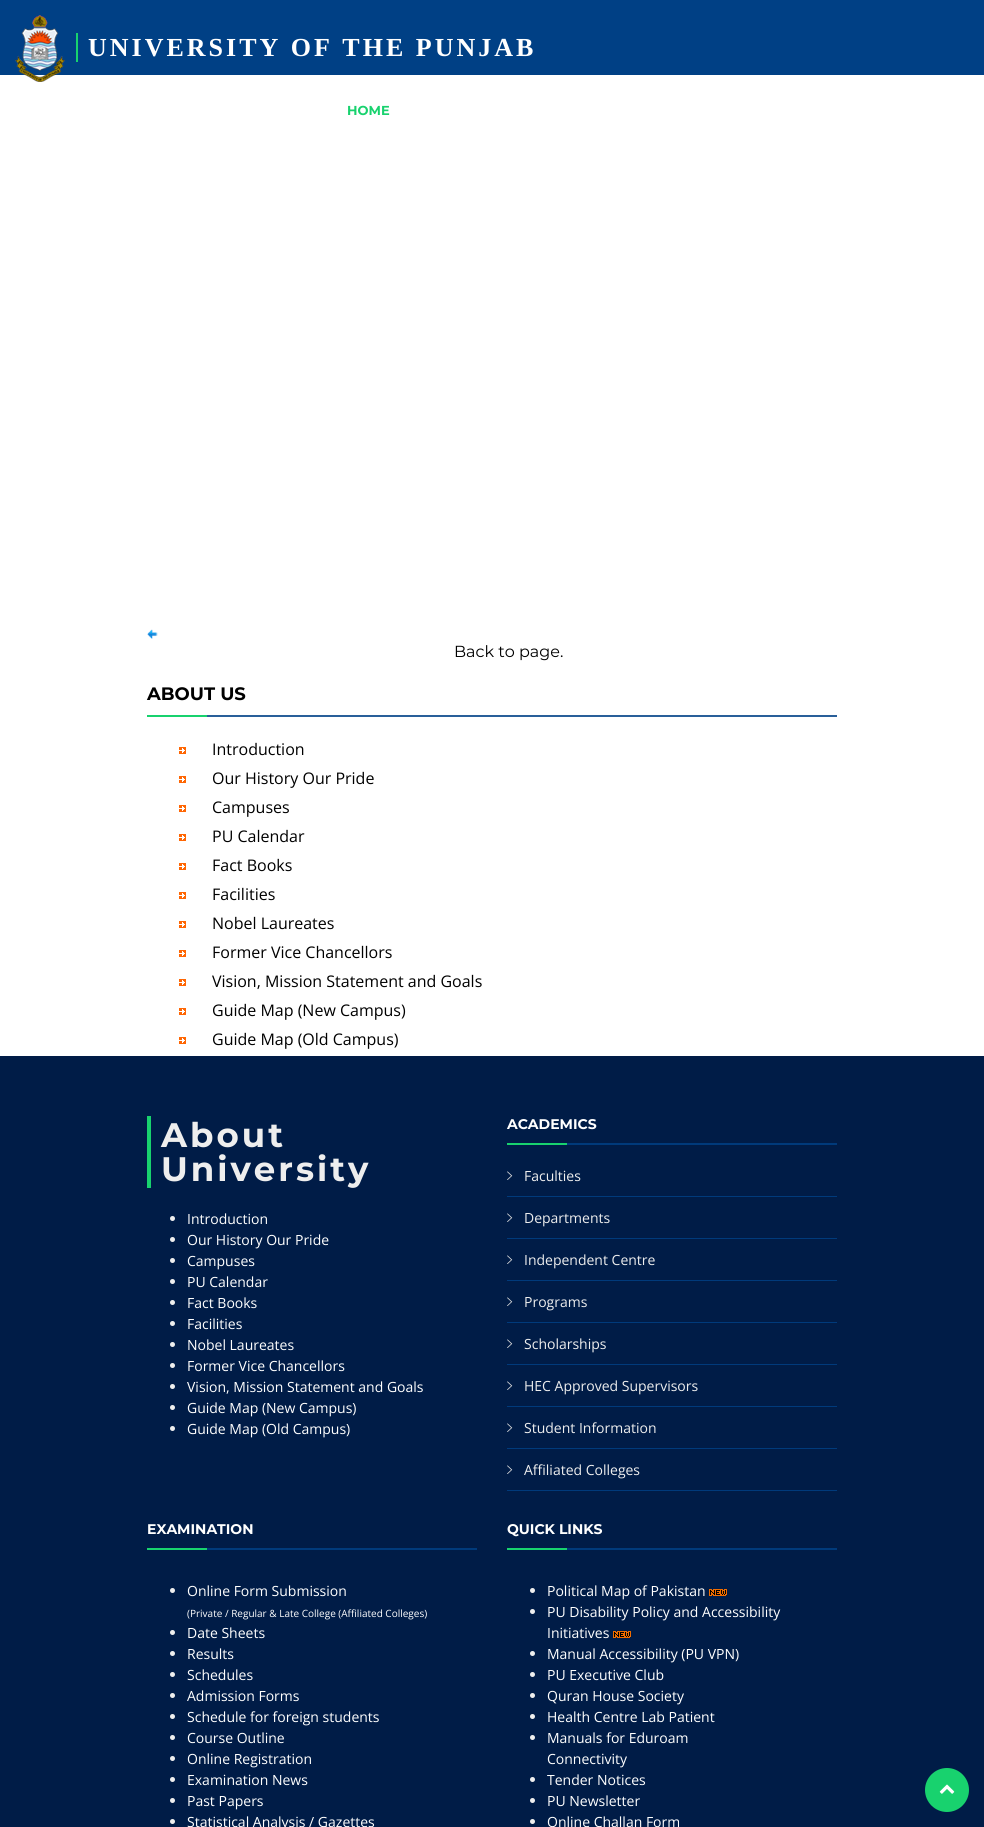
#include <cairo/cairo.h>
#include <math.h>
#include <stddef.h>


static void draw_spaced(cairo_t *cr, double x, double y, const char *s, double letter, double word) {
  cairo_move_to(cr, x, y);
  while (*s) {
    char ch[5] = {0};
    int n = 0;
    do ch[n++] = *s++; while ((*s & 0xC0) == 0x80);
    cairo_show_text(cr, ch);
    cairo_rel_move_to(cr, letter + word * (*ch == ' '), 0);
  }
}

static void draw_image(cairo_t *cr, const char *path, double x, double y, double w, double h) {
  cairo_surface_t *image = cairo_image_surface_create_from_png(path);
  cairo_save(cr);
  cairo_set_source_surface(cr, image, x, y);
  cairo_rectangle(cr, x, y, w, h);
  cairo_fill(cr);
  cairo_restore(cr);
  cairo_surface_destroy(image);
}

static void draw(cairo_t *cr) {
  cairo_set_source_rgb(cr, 1, 1, 1);
  cairo_paint(cr);
  cairo_set_source_rgb(cr, 0, 64 / 255.0, 133 / 255.0);
  cairo_rectangle(cr, 0, 0, 984, 75);
  cairo_fill(cr);
  draw_image(cr, "images/1.png", 15, 15, 50, 67);
  cairo_set_source_rgb(cr, 24 / 255.0, 210 / 255.0, 110 / 255.0);
  cairo_rectangle(cr, 76, 33, 2, 29);
  cairo_fill(cr);
  draw_image(cr, "images/2.png", 147, 629, 11, 10);
  cairo_rectangle(cr, 147, 715, 60, 2);
  cairo_fill(cr);
  cairo_set_source_rgb(cr, 41 / 255.0, 95 / 255.0, 153 / 255.0);
  cairo_rectangle(cr, 207, 715, 630, 2);
  cairo_fill(cr);
  draw_image(cr, "images/3.png", 179, 747, 7, 7);
  draw_image(cr, "images/3.png", 179, 776, 7, 7);
  draw_image(cr, "images/3.png", 179, 805, 7, 7);
  draw_image(cr, "images/3.png", 179, 834, 7, 7);
  draw_image(cr, "images/3.png", 179, 863, 7, 7);
  draw_image(cr, "images/3.png", 179, 892, 7, 7);
  draw_image(cr, "images/3.png", 179, 921, 7, 7);
  draw_image(cr, "images/3.png", 179, 950, 7, 7);
  draw_image(cr, "images/3.png", 179, 979, 7, 7);
  draw_image(cr, "images/3.png", 179, 1008, 7, 7);
  draw_image(cr, "images/3.png", 179, 1037, 7, 7);
  cairo_set_source_rgb(cr, 0, 28 / 255.0, 71 / 255.0);
  cairo_rectangle(cr, 0, 1056, 984, 771);
  cairo_fill(cr);
  cairo_set_source_rgb(cr, 24 / 255.0, 210 / 255.0, 110 / 255.0);
  cairo_rectangle(cr, 147, 1116, 4, 72);
  cairo_fill(cr);
  cairo_set_source_rgb(cr, 238 / 255.0, 238 / 255.0, 238 / 255.0);
  cairo_arc(cr, 172.5, 1218.5, 2.5, 0, 2 * M_PI);
  cairo_fill(cr);
  cairo_arc(cr, 172.5, 1239.5, 2.5, 0, 2 * M_PI);
  cairo_fill(cr);
  cairo_arc(cr, 172.5, 1260.5, 2.5, 0, 2 * M_PI);
  cairo_fill(cr);
  cairo_arc(cr, 172.5, 1281.5, 2.5, 0, 2 * M_PI);
  cairo_fill(cr);
  cairo_arc(cr, 172.5, 1302.5, 2.5, 0, 2 * M_PI);
  cairo_fill(cr);
  cairo_arc(cr, 172.5, 1323.5, 2.5, 0, 2 * M_PI);
  cairo_fill(cr);
  cairo_arc(cr, 172.5, 1344.5, 2.5, 0, 2 * M_PI);
  cairo_fill(cr);
  cairo_arc(cr, 172.5, 1365.5, 2.5, 0, 2 * M_PI);
  cairo_fill(cr);
  cairo_arc(cr, 172.5, 1386.5, 2.5, 0, 2 * M_PI);
  cairo_fill(cr);
  cairo_arc(cr, 172.5, 1407.5, 2.5, 0, 2 * M_PI);
  cairo_fill(cr);
  cairo_arc(cr, 172.5, 1428.5, 2.5, 0, 2 * M_PI);
  cairo_fill(cr);
  cairo_set_source_rgb(cr, 24 / 255.0, 210 / 255.0, 110 / 255.0);
  cairo_rectangle(cr, 507, 1143, 60, 2);
  cairo_fill(cr);
  cairo_set_source_rgb(cr, 0, 58 / 255.0, 123 / 255.0);
  cairo_rectangle(cr, 567, 1143, 270, 2);
  cairo_fill(cr);
  cairo_rectangle(cr, 507, 1196, 330, 1);
  cairo_fill(cr);
  draw_image(cr, "images/4.png", 507, 1171, 6, 9);
  cairo_rectangle(cr, 507, 1238, 330, 1);
  cairo_fill(cr);
  draw_image(cr, "images/4.png", 507, 1213, 6, 9);
  cairo_rectangle(cr, 507, 1280, 330, 1);
  cairo_fill(cr);
  draw_image(cr, "images/4.png", 507, 1255, 6, 9);
  cairo_rectangle(cr, 507, 1322, 330, 1);
  cairo_fill(cr);
  draw_image(cr, "images/4.png", 507, 1297, 6, 9);
  cairo_rectangle(cr, 507, 1364, 330, 1);
  cairo_fill(cr);
  draw_image(cr, "images/4.png", 507, 1339, 6, 9);
  cairo_rectangle(cr, 507, 1406, 330, 1);
  cairo_fill(cr);
  draw_image(cr, "images/4.png", 507, 1381, 6, 9);
  cairo_rectangle(cr, 507, 1448, 330, 1);
  cairo_fill(cr);
  draw_image(cr, "images/4.png", 507, 1423, 6, 9);
  cairo_rectangle(cr, 507, 1490, 330, 1);
  cairo_fill(cr);
  draw_image(cr, "images/4.png", 507, 1465, 6, 9);
  cairo_set_source_rgb(cr, 24 / 255.0, 210 / 255.0, 110 / 255.0);
  cairo_rectangle(cr, 147, 1548, 60, 2);
  cairo_fill(cr);
  cairo_set_source_rgb(cr, 0, 58 / 255.0, 123 / 255.0);
  cairo_rectangle(cr, 207, 1548, 270, 2);
  cairo_fill(cr);
  cairo_set_source_rgb(cr, 238 / 255.0, 238 / 255.0, 238 / 255.0);
  cairo_arc(cr, 172.5, 1590.5, 2.5, 0, 2 * M_PI);
  cairo_fill(cr);
  cairo_arc(cr, 172.5, 1632.5, 2.5, 0, 2 * M_PI);
  cairo_fill(cr);
  cairo_arc(cr, 172.5, 1653.5, 2.5, 0, 2 * M_PI);
  cairo_fill(cr);
  cairo_arc(cr, 172.5, 1674.5, 2.5, 0, 2 * M_PI);
  cairo_fill(cr);
  cairo_arc(cr, 172.5, 1695.5, 2.5, 0, 2 * M_PI);
  cairo_fill(cr);
  cairo_arc(cr, 172.5, 1716.5, 2.5, 0, 2 * M_PI);
  cairo_fill(cr);
  cairo_arc(cr, 172.5, 1737.5, 2.5, 0, 2 * M_PI);
  cairo_fill(cr);
  cairo_arc(cr, 172.5, 1758.5, 2.5, 0, 2 * M_PI);
  cairo_fill(cr);
  cairo_arc(cr, 172.5, 1779.5, 2.5, 0, 2 * M_PI);
  cairo_fill(cr);
  cairo_arc(cr, 172.5, 1800.5, 2.5, 0, 2 * M_PI);
  cairo_fill(cr);
  cairo_arc(cr, 172.5, 1821.5, 2.5, 0, 2 * M_PI);
  cairo_fill(cr);
  cairo_set_source_rgb(cr, 24 / 255.0, 210 / 255.0, 110 / 255.0);
  cairo_rectangle(cr, 507, 1548, 60, 2);
  cairo_fill(cr);
  cairo_set_source_rgb(cr, 0, 58 / 255.0, 123 / 255.0);
  cairo_rectangle(cr, 567, 1548, 270, 2);
  cairo_fill(cr);
  cairo_set_source_rgb(cr, 238 / 255.0, 238 / 255.0, 238 / 255.0);
  cairo_arc(cr, 532.5, 1590.5, 2.5, 0, 2 * M_PI);
  cairo_fill(cr);
  draw_image(cr, "images/5.png", 709, 1589, 18, 7);
  cairo_arc(cr, 532.5, 1611.5, 2.5, 0, 2 * M_PI);
  cairo_fill(cr);
  draw_image(cr, "images/5.png", 613, 1631, 18, 7);
  cairo_arc(cr, 532.5, 1653.5, 2.5, 0, 2 * M_PI);
  cairo_fill(cr);
  cairo_arc(cr, 532.5, 1674.5, 2.5, 0, 2 * M_PI);
  cairo_fill(cr);
  cairo_arc(cr, 532.5, 1695.5, 2.5, 0, 2 * M_PI);
  cairo_fill(cr);
  cairo_arc(cr, 532.5, 1716.5, 2.5, 0, 2 * M_PI);
  cairo_fill(cr);
  cairo_arc(cr, 532.5, 1737.5, 2.5, 0, 2 * M_PI);
  cairo_fill(cr);
  cairo_arc(cr, 532.5, 1779.5, 2.5, 0, 2 * M_PI);
  cairo_fill(cr);
  cairo_arc(cr, 532.5, 1800.5, 2.5, 0, 2 * M_PI);
  cairo_fill(cr);
  cairo_arc(cr, 532.5, 1821.5, 2.5, 0, 2 * M_PI);
  cairo_fill(cr);
  cairo_set_source_rgb(cr, 24 / 255.0, 210 / 255.0, 110 / 255.0);
  cairo_arc(cr, 947, 1790, 22, 0, 2 * M_PI);
  cairo_fill(cr);
  draw_image(cr, "images/6.png", 939, 1784, 16, 10);
  cairo_select_font_face(cr, "Liberation Serif", CAIRO_FONT_SLANT_NORMAL, CAIRO_FONT_WEIGHT_BOLD);
  cairo_set_font_size(cr, 26);
  cairo_set_source_rgb(cr, 1, 1, 1);
  draw_spaced(cr, 88, 56, "UNIVERSITY OF THE PUNJAB", 3, 0);
  cairo_select_font_face(cr, "Montserrat", CAIRO_FONT_SLANT_NORMAL, CAIRO_FONT_WEIGHT_BOLD);
  cairo_set_font_size(cr, 13);
  cairo_set_source_rgb(cr, 24 / 255.0, 210 / 255.0, 110 / 255.0);
  cairo_move_to(cr, 347, 115);
  cairo_show_text(cr, "HOME");
  cairo_select_font_face(cr, "Montserrat", CAIRO_FONT_SLANT_NORMAL, CAIRO_FONT_WEIGHT_NORMAL);
  cairo_set_font_size(cr, 16);
  cairo_set_source_rgb(cr, 0, 0, 0);
  cairo_move_to(cr, 454, 657);
  cairo_show_text(cr, "Back to page.");
  cairo_select_font_face(cr, "Montserrat", CAIRO_FONT_SLANT_NORMAL, CAIRO_FONT_WEIGHT_BOLD);
  cairo_set_font_size(cr, 18);
  cairo_move_to(cr, 147, 700);
  cairo_show_text(cr, "ABOUT US");
  cairo_select_font_face(cr, "Open Sans", CAIRO_FONT_SLANT_NORMAL, CAIRO_FONT_WEIGHT_NORMAL);
  cairo_set_font_size(cr, 16);
  cairo_move_to(cr, 212, 755);
  cairo_show_text(cr, "Introduction");
  cairo_move_to(cr, 212, 784);
  cairo_show_text(cr, "Our History Our Pride");
  cairo_move_to(cr, 212, 813);
  cairo_show_text(cr, "Campuses");
  cairo_move_to(cr, 212, 842);
  cairo_show_text(cr, "PU Calendar");
  cairo_move_to(cr, 212, 871);
  cairo_show_text(cr, "Fact Books");
  cairo_move_to(cr, 212, 900);
  cairo_show_text(cr, "Facilities");
  cairo_move_to(cr, 212, 929);
  cairo_show_text(cr, "Nobel Laureates");
  cairo_move_to(cr, 212, 958);
  cairo_show_text(cr, "Former Vice Chancellors");
  cairo_move_to(cr, 212, 987);
  cairo_show_text(cr, "Vision, Mission Statement and Goals");
  cairo_move_to(cr, 212, 1016);
  cairo_show_text(cr, "Guide Map (New Campus)");
  cairo_move_to(cr, 212, 1045);
  cairo_show_text(cr, "Guide Map (Old Campus)");
  cairo_select_font_face(cr, "Montserrat", CAIRO_FONT_SLANT_NORMAL, CAIRO_FONT_WEIGHT_BOLD);
  cairo_set_font_size(cr, 34);
  cairo_set_source_rgb(cr, 238 / 255.0, 238 / 255.0, 238 / 255.0);
  draw_spaced(cr, 161, 1147, "About", 3, 0);
  draw_spaced(cr, 161, 1181, "University", 3, 0);
  cairo_select_font_face(cr, "Open Sans", CAIRO_FONT_SLANT_NORMAL, CAIRO_FONT_WEIGHT_NORMAL);
  cairo_set_font_size(cr, 14);
  cairo_set_source_rgb(cr, 1, 1, 1);
  cairo_move_to(cr, 187, 1224);
  cairo_show_text(cr, "Introduction");
  cairo_move_to(cr, 187, 1245);
  cairo_show_text(cr, "Our History Our Pride");
  cairo_move_to(cr, 187, 1266);
  cairo_show_text(cr, "Campuses");
  cairo_move_to(cr, 187, 1287);
  cairo_show_text(cr, "PU Calendar");
  cairo_move_to(cr, 187, 1308);
  cairo_show_text(cr, "Fact Books");
  cairo_move_to(cr, 187, 1329);
  cairo_show_text(cr, "Facilities");
  cairo_move_to(cr, 187, 1350);
  cairo_show_text(cr, "Nobel Laureates");
  cairo_move_to(cr, 187, 1371);
  cairo_show_text(cr, "Former Vice Chancellors");
  cairo_move_to(cr, 187, 1392);
  cairo_show_text(cr, "Vision, Mission Statement and Goals");
  cairo_move_to(cr, 187, 1413);
  cairo_show_text(cr, "Guide Map (New Campus)");
  cairo_move_to(cr, 187, 1434);
  cairo_show_text(cr, "Guide Map (Old Campus)");
  cairo_select_font_face(cr, "Montserrat", CAIRO_FONT_SLANT_NORMAL, CAIRO_FONT_WEIGHT_BOLD);
  cairo_move_to(cr, 507, 1129);
  cairo_show_text(cr, "ACADEMICS");
  cairo_select_font_face(cr, "Open Sans", CAIRO_FONT_SLANT_NORMAL, CAIRO_FONT_WEIGHT_NORMAL);
  cairo_set_source_rgb(cr, 238 / 255.0, 238 / 255.0, 238 / 255.0);
  cairo_move_to(cr, 524, 1181);
  cairo_show_text(cr, "Faculties");
  cairo_move_to(cr, 524, 1223);
  cairo_show_text(cr, "Departments");
  cairo_move_to(cr, 524, 1265);
  cairo_show_text(cr, "Independent Centre");
  cairo_move_to(cr, 524, 1307);
  cairo_show_text(cr, "Programs");
  cairo_move_to(cr, 524, 1349);
  cairo_show_text(cr, "Scholarships");
  cairo_move_to(cr, 524, 1391);
  cairo_show_text(cr, "HEC Approved Supervisors");
  cairo_move_to(cr, 524, 1433);
  cairo_show_text(cr, "Student Information");
  cairo_move_to(cr, 524, 1475);
  cairo_show_text(cr, "Affiliated Colleges");
  cairo_select_font_face(cr, "Montserrat", CAIRO_FONT_SLANT_NORMAL, CAIRO_FONT_WEIGHT_BOLD);
  cairo_set_source_rgb(cr, 1, 1, 1);
  cairo_move_to(cr, 147, 1534);
  cairo_show_text(cr, "EXAMINATION");
  cairo_select_font_face(cr, "Open Sans", CAIRO_FONT_SLANT_NORMAL, CAIRO_FONT_WEIGHT_NORMAL);
  cairo_move_to(cr, 187, 1596);
  cairo_show_text(cr, "Online Form Submission");
  cairo_set_font_size(cr, 10);
  cairo_move_to(cr, 187, 1617);
  cairo_show_text(cr, "(Private / Regular & Late College (Affiliated Colleges)");
  cairo_set_font_size(cr, 14);
  cairo_move_to(cr, 187, 1638);
  cairo_show_text(cr, "Date Sheets");
  cairo_move_to(cr, 187, 1659);
  cairo_show_text(cr, "Results");
  cairo_move_to(cr, 187, 1680);
  cairo_show_text(cr, "Schedules");
  cairo_move_to(cr, 187, 1701);
  cairo_show_text(cr, "Admission Forms");
  cairo_move_to(cr, 187, 1722);
  cairo_show_text(cr, "Schedule for foreign students");
  cairo_move_to(cr, 187, 1743);
  cairo_show_text(cr, "Course Outline");
  cairo_move_to(cr, 187, 1764);
  cairo_show_text(cr, "Online Registration");
  cairo_move_to(cr, 187, 1785);
  cairo_show_text(cr, "Examination News");
  cairo_move_to(cr, 187, 1806);
  cairo_show_text(cr, "Past Papers");
  cairo_move_to(cr, 187, 1827);
  cairo_show_text(cr, "Statistical Analysis / Gazettes");
  cairo_select_font_face(cr, "Montserrat", CAIRO_FONT_SLANT_NORMAL, CAIRO_FONT_WEIGHT_BOLD);
  cairo_move_to(cr, 507, 1534);
  cairo_show_text(cr, "QUICK LINKS");
  cairo_select_font_face(cr, "Open Sans", CAIRO_FONT_SLANT_NORMAL, CAIRO_FONT_WEIGHT_NORMAL);
  cairo_move_to(cr, 547, 1596);
  cairo_show_text(cr, "Political Map of Pakistan");
  cairo_move_to(cr, 547, 1617);
  cairo_show_text(cr, "PU Disability Policy and Accessibility");
  cairo_move_to(cr, 547, 1638);
  cairo_show_text(cr, "Initiatives");
  cairo_move_to(cr, 547, 1659);
  cairo_show_text(cr, "Manual Accessibility (PU VPN)");
  cairo_move_to(cr, 547, 1680);
  cairo_show_text(cr, "PU Executive Club");
  cairo_move_to(cr, 547, 1701);
  cairo_show_text(cr, "Quran House Society");
  cairo_move_to(cr, 547, 1722);
  cairo_show_text(cr, "Health Centre Lab Patient");
  cairo_move_to(cr, 547, 1743);
  cairo_show_text(cr, "Manuals for Eduroam");
  cairo_move_to(cr, 547, 1764);
  cairo_show_text(cr, "Connectivity");
  cairo_move_to(cr, 547, 1785);
  cairo_show_text(cr, "Tender Notices");
  cairo_move_to(cr, 547, 1806);
  cairo_show_text(cr, "PU Newsletter");
  cairo_move_to(cr, 547, 1827);
  cairo_show_text(cr, "Online Challan Form");
}

int main(void) {
  cairo_surface_t *surface = cairo_image_surface_create(CAIRO_FORMAT_RGB24, 984, 1827);
  cairo_t *cr = cairo_create(surface);
  cairo_font_options_t *options = cairo_font_options_create();
  cairo_font_options_set_hint_metrics(options, CAIRO_HINT_METRICS_OFF);
  cairo_font_options_set_hint_style(options, CAIRO_HINT_STYLE_NONE);
  cairo_set_font_options(cr, options);
  cairo_set_miter_limit(cr, 4);
  draw(cr);
  cairo_surface_write_to_png(surface, "out.png");
  cairo_font_options_destroy(options);
  cairo_destroy(cr);
  cairo_surface_destroy(surface);
  return 0;
}
